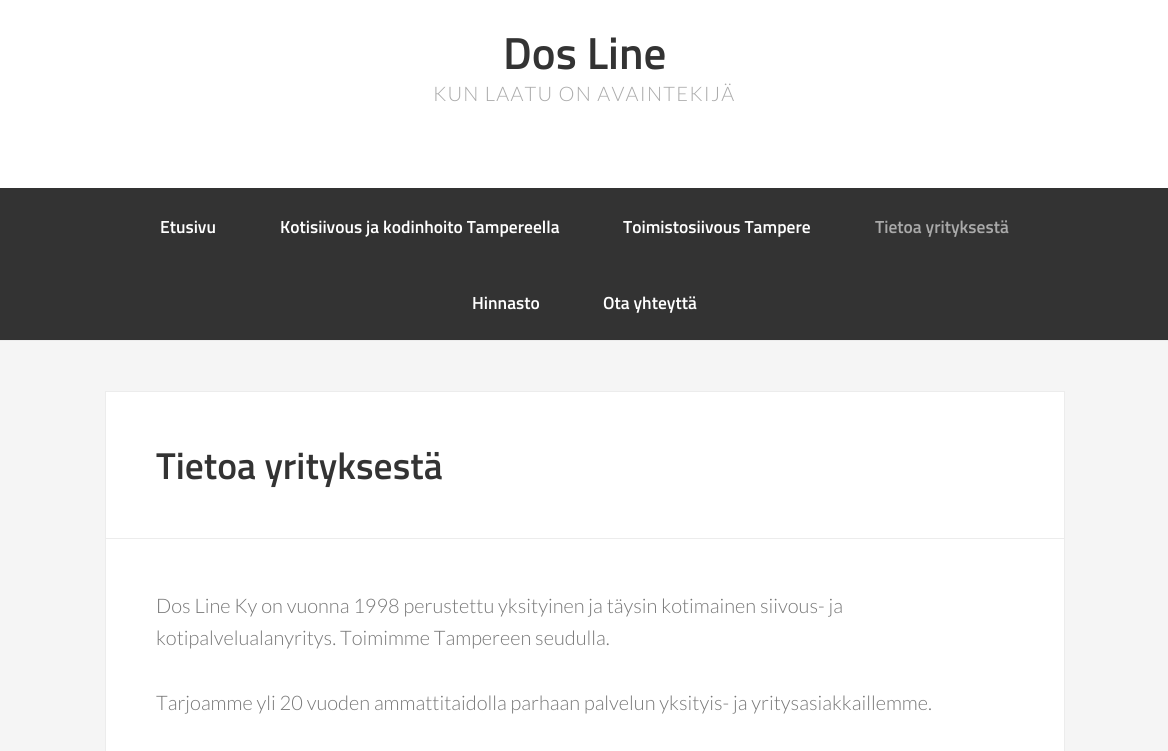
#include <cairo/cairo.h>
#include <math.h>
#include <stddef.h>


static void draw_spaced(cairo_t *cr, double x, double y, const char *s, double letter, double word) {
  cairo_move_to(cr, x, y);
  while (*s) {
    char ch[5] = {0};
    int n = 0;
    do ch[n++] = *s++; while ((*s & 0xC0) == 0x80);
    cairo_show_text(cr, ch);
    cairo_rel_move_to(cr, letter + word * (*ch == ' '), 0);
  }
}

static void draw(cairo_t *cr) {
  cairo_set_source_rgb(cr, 1, 1, 1);
  cairo_paint(cr);
  cairo_set_source_rgb(cr, 51 / 255.0, 51 / 255.0, 51 / 255.0);
  cairo_rectangle(cr, 0, 188, 1168, 152);
  cairo_fill(cr);
  cairo_set_source_rgb(cr, 245 / 255.0, 245 / 255.0, 245 / 255.0);
  cairo_rectangle(cr, 0, 341, 1168, 410);
  cairo_fill(cr);
  cairo_set_source_rgb(cr, 236 / 255.0, 236 / 255.0, 236 / 255.0);
  cairo_rectangle(cr, 0, 340, 1168, 1);
  cairo_fill(cr);
  cairo_set_source_rgb(cr, 1, 1, 1);
  cairo_rectangle(cr, 105.5, 391.5, 959, 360);
  cairo_fill_preserve(cr);
  cairo_set_source_rgb(cr, 236 / 255.0, 236 / 255.0, 236 / 255.0);
  cairo_set_line_width(cr, 1);
  cairo_stroke(cr);
  cairo_rectangle(cr, 106, 538, 958, 1);
  cairo_fill(cr);
  cairo_select_font_face(cr, "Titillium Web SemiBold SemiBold", CAIRO_FONT_SLANT_NORMAL, CAIRO_FONT_WEIGHT_NORMAL);
  cairo_set_font_size(cr, 45);
  cairo_set_source_rgb(cr, 51 / 255.0, 51 / 255.0, 51 / 255.0);
  cairo_move_to(cr, 503, 69);
  cairo_show_text(cr, "Dos Line");
  cairo_select_font_face(cr, "Lato Light", CAIRO_FONT_SLANT_NORMAL, CAIRO_FONT_WEIGHT_NORMAL);
  cairo_set_font_size(cr, 20);
  cairo_set_source_rgb(cr, 170 / 255.0, 170 / 255.0, 170 / 255.0);
  draw_spaced(cr, 433, 101, "KUN LAATU ON AVAINTEKIJÄ", 1.25, 0);
  cairo_select_font_face(cr, "Titillium Web SemiBold SemiBold", CAIRO_FONT_SLANT_NORMAL, CAIRO_FONT_WEIGHT_NORMAL);
  cairo_set_font_size(cr, 17.5);
  cairo_set_source_rgb(cr, 1, 1, 1);
  cairo_move_to(cr, 160, 233);
  cairo_show_text(cr, "Etusivu");
  cairo_move_to(cr, 280, 233);
  cairo_show_text(cr, "Kotisiivous ja kodinhoito Tampereella");
  cairo_move_to(cr, 623, 233);
  cairo_show_text(cr, "Toimistosiivous Tampere");
  cairo_set_source_rgb(cr, 170 / 255.0, 170 / 255.0, 170 / 255.0);
  cairo_move_to(cr, 875, 233);
  cairo_show_text(cr, "Tietoa yrityksestä");
  cairo_set_source_rgb(cr, 1, 1, 1);
  cairo_move_to(cr, 472, 309);
  cairo_show_text(cr, "Hinnasto");
  cairo_move_to(cr, 603, 309);
  cairo_show_text(cr, "Ota yhteyttä");
  cairo_set_font_size(cr, 37.5);
  cairo_set_source_rgb(cr, 51 / 255.0, 51 / 255.0, 51 / 255.0);
  cairo_move_to(cr, 156, 479);
  cairo_show_text(cr, "Tietoa yrityksestä");
  cairo_select_font_face(cr, "Lato Light", CAIRO_FONT_SLANT_NORMAL, CAIRO_FONT_WEIGHT_NORMAL);
  cairo_set_font_size(cr, 20);
  cairo_set_source_rgb(cr, 119 / 255.0, 119 / 255.0, 119 / 255.0);
  cairo_move_to(cr, 156, 613);
  cairo_show_text(cr, "Dos Line Ky on vuonna 1998 perustettu yksityinen ja täysin kotimainen siivous- ja");
  cairo_move_to(cr, 156, 645);
  cairo_show_text(cr, "kotipalvelualanyritys. Toimimme Tampereen seudulla.");
  cairo_move_to(cr, 156, 710);
  cairo_show_text(cr, "Tarjoamme yli 20 vuoden ammattitaidolla parhaan palvelun yksityis- ja yritysasiakkaillemme.");
}

int main(void) {
  cairo_surface_t *surface = cairo_image_surface_create(CAIRO_FORMAT_RGB24, 1168, 751);
  cairo_t *cr = cairo_create(surface);
  cairo_font_options_t *options = cairo_font_options_create();
  cairo_font_options_set_hint_metrics(options, CAIRO_HINT_METRICS_OFF);
  cairo_font_options_set_hint_style(options, CAIRO_HINT_STYLE_NONE);
  cairo_set_font_options(cr, options);
  cairo_set_miter_limit(cr, 4);
  draw(cr);
  cairo_surface_write_to_png(surface, "out.png");
  cairo_font_options_destroy(options);
  cairo_destroy(cr);
  cairo_surface_destroy(surface);
  return 0;
}
